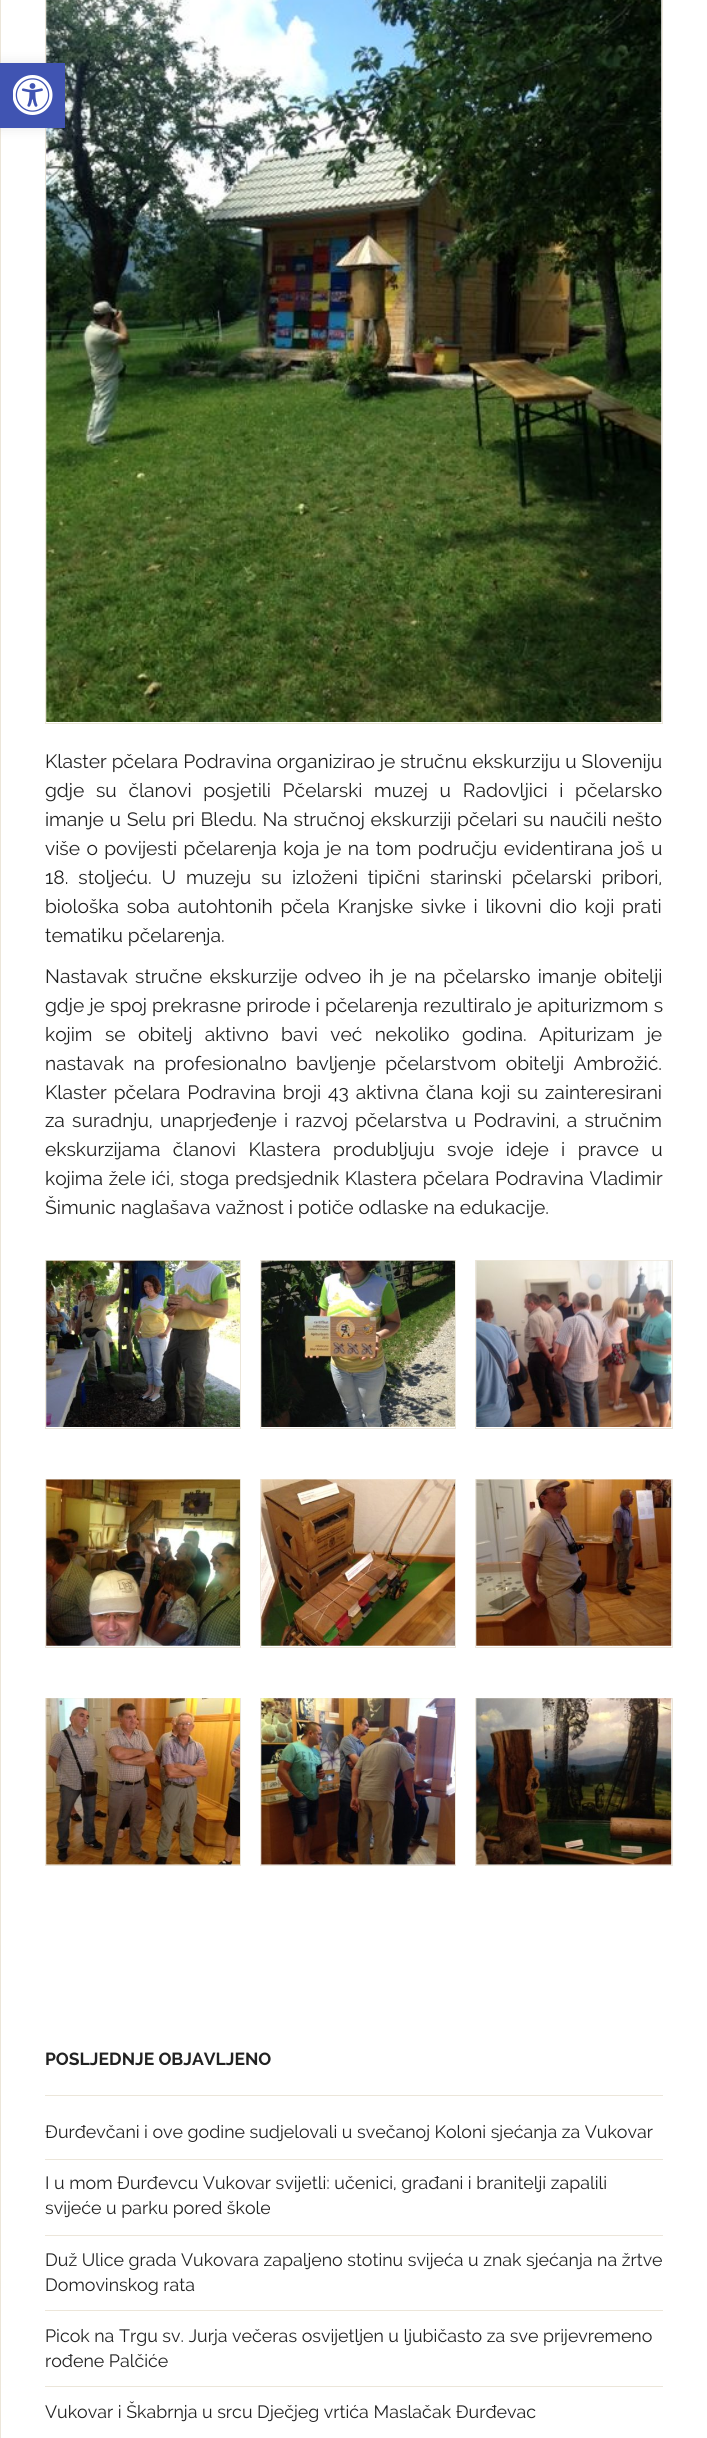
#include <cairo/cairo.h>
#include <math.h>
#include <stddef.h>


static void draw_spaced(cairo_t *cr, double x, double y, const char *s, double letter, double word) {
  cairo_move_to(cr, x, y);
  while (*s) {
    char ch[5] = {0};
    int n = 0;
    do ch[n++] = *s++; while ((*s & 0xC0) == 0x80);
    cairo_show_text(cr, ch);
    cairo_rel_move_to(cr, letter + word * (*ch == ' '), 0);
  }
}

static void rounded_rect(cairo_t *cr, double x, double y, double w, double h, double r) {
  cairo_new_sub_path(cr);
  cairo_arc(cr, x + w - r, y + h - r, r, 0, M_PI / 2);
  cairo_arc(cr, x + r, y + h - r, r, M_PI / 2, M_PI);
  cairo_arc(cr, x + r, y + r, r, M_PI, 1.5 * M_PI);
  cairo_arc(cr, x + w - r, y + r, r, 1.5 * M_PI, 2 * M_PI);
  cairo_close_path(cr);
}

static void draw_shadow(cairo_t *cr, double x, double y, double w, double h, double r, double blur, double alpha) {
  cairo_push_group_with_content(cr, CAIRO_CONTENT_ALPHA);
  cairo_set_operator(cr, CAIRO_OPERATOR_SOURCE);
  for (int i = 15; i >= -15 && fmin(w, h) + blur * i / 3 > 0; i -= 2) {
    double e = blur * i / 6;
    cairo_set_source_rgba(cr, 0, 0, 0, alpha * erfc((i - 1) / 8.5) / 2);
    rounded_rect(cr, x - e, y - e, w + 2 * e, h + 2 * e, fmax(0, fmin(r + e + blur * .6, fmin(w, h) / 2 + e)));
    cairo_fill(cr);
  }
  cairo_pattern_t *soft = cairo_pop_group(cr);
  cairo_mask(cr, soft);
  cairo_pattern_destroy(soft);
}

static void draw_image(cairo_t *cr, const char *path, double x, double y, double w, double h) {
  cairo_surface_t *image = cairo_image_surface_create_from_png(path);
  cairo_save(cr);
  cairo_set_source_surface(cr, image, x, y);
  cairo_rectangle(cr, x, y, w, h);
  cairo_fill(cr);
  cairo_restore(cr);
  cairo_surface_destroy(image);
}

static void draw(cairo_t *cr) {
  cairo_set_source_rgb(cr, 1, 1, 1);
  cairo_paint(cr);
  cairo_rectangle(cr, 0.5, -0.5, 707, 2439);
  cairo_set_source_rgb(cr, 236 / 255.0, 230 / 255.0, 218 / 255.0);
  cairo_set_line_width(cr, 1);
  cairo_stroke(cr);
  cairo_rectangle(cr, 45.5, -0.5, 617, 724);
  cairo_stroke(cr);
  draw_image(cr, "images/2.png", 46, 0, 616, 722);
  cairo_set_source_rgb(cr, 0, 0, 0);
  draw_shadow(cr, 0, 63, 65, 65, 0, 6, 0.1);
  cairo_set_source_rgb(cr, 64 / 255.0, 84 / 255.0, 178 / 255.0);
  cairo_rectangle(cr, 0, 63, 65, 65);
  cairo_fill(cr);
  draw_image(cr, "images/1.png", 13, 75, 40, 40);
  cairo_new_path(cr);
  cairo_move_to(cr, 45, 1354.5);
  cairo_line_to(cr, 241, 1354.5);
  cairo_set_source_rgb(cr, 170 / 255.0, 170 / 255.0, 170 / 255.0);
  cairo_set_line_width(cr, 1.2);
  cairo_set_dash(cr, (double[]){1.25, 1.25}, 2, 0);
  cairo_stroke(cr);
  cairo_rectangle(cr, 45.5, 1260.5, 195, 168);
  cairo_set_source_rgb(cr, 236 / 255.0, 230 / 255.0, 218 / 255.0);
  cairo_set_line_width(cr, 1);
  cairo_set_dash(cr, NULL, 0, 0);
  cairo_stroke(cr);
  draw_image(cr, "images/3.png", 46, 1260, 194, 167);
  cairo_new_path(cr);
  cairo_move_to(cr, 260, 1354.5);
  cairo_line_to(cr, 456, 1354.5);
  cairo_set_source_rgb(cr, 170 / 255.0, 170 / 255.0, 170 / 255.0);
  cairo_set_line_width(cr, 1.2);
  cairo_set_dash(cr, (double[]){1.25, 1.25}, 2, 0);
  cairo_stroke(cr);
  cairo_rectangle(cr, 260.5, 1260.5, 195, 168);
  cairo_set_source_rgb(cr, 236 / 255.0, 230 / 255.0, 218 / 255.0);
  cairo_set_line_width(cr, 1);
  cairo_set_dash(cr, NULL, 0, 0);
  cairo_stroke(cr);
  draw_image(cr, "images/4.png", 261, 1260, 194, 167);
  cairo_new_path(cr);
  cairo_move_to(cr, 475, 1354.5);
  cairo_line_to(cr, 672.5, 1354.5);
  cairo_set_source_rgb(cr, 170 / 255.0, 170 / 255.0, 170 / 255.0);
  cairo_set_line_width(cr, 1.2);
  cairo_set_dash(cr, (double[]){1.25, 1.25}, 2, 0);
  cairo_stroke(cr);
  cairo_rectangle(cr, 475.5, 1260.5, 197, 168);
  cairo_set_source_rgb(cr, 236 / 255.0, 230 / 255.0, 218 / 255.0);
  cairo_set_line_width(cr, 1);
  cairo_set_dash(cr, NULL, 0, 0);
  cairo_stroke(cr);
  draw_image(cr, "images/5.png", 476, 1260, 196, 167);
  cairo_new_path(cr);
  cairo_move_to(cr, 45, 1573);
  cairo_line_to(cr, 241, 1573);
  cairo_set_source_rgb(cr, 170 / 255.0, 170 / 255.0, 170 / 255.0);
  cairo_set_line_width(cr, 1.2);
  cairo_set_dash(cr, (double[]){1.25, 1.25}, 2, 0);
  cairo_stroke(cr);
  cairo_rectangle(cr, 45.5, 1479.5, 195, 168);
  cairo_set_source_rgb(cr, 236 / 255.0, 230 / 255.0, 218 / 255.0);
  cairo_set_line_width(cr, 1);
  cairo_set_dash(cr, NULL, 0, 0);
  cairo_stroke(cr);
  draw_image(cr, "images/6.png", 46, 1479, 194, 167);
  cairo_new_path(cr);
  cairo_move_to(cr, 260, 1573);
  cairo_line_to(cr, 456, 1573);
  cairo_set_source_rgb(cr, 170 / 255.0, 170 / 255.0, 170 / 255.0);
  cairo_set_line_width(cr, 1.2);
  cairo_set_dash(cr, (double[]){1.25, 1.25}, 2, 0);
  cairo_stroke(cr);
  cairo_rectangle(cr, 260.5, 1479.5, 195, 168);
  cairo_set_source_rgb(cr, 236 / 255.0, 230 / 255.0, 218 / 255.0);
  cairo_set_line_width(cr, 1);
  cairo_set_dash(cr, NULL, 0, 0);
  cairo_stroke(cr);
  draw_image(cr, "images/7.png", 261, 1479, 194, 167);
  cairo_new_path(cr);
  cairo_move_to(cr, 475, 1573);
  cairo_line_to(cr, 672.5, 1573);
  cairo_set_source_rgb(cr, 170 / 255.0, 170 / 255.0, 170 / 255.0);
  cairo_set_line_width(cr, 1.2);
  cairo_set_dash(cr, (double[]){1.25, 1.25}, 2, 0);
  cairo_stroke(cr);
  cairo_rectangle(cr, 475.5, 1479.5, 197, 168);
  cairo_set_source_rgb(cr, 236 / 255.0, 230 / 255.0, 218 / 255.0);
  cairo_set_line_width(cr, 1);
  cairo_set_dash(cr, NULL, 0, 0);
  cairo_stroke(cr);
  draw_image(cr, "images/8.png", 476, 1479, 196, 167);
  cairo_new_path(cr);
  cairo_move_to(cr, 45, 1792);
  cairo_line_to(cr, 241, 1792);
  cairo_set_source_rgb(cr, 170 / 255.0, 170 / 255.0, 170 / 255.0);
  cairo_set_line_width(cr, 1.2);
  cairo_set_dash(cr, (double[]){1.25, 1.25}, 2, 0);
  cairo_stroke(cr);
  cairo_rectangle(cr, 45.5, 1698.5, 195, 167);
  cairo_set_source_rgb(cr, 236 / 255.0, 230 / 255.0, 218 / 255.0);
  cairo_set_line_width(cr, 1);
  cairo_set_dash(cr, NULL, 0, 0);
  cairo_stroke(cr);
  draw_image(cr, "images/9.png", 46, 1698, 194, 167);
  cairo_new_path(cr);
  cairo_move_to(cr, 260, 1792);
  cairo_line_to(cr, 456, 1792);
  cairo_set_source_rgb(cr, 170 / 255.0, 170 / 255.0, 170 / 255.0);
  cairo_set_line_width(cr, 1.2);
  cairo_set_dash(cr, (double[]){1.25, 1.25}, 2, 0);
  cairo_stroke(cr);
  cairo_rectangle(cr, 260.5, 1698.5, 195, 167);
  cairo_set_source_rgb(cr, 236 / 255.0, 230 / 255.0, 218 / 255.0);
  cairo_set_line_width(cr, 1);
  cairo_set_dash(cr, NULL, 0, 0);
  cairo_stroke(cr);
  draw_image(cr, "images/10.png", 261, 1698, 194, 167);
  cairo_new_path(cr);
  cairo_move_to(cr, 475, 1792);
  cairo_line_to(cr, 672.5, 1792);
  cairo_set_source_rgb(cr, 170 / 255.0, 170 / 255.0, 170 / 255.0);
  cairo_set_line_width(cr, 1.2);
  cairo_set_dash(cr, (double[]){1.25, 1.25}, 2, 0);
  cairo_stroke(cr);
  cairo_rectangle(cr, 475.5, 1698.5, 197, 167);
  cairo_set_source_rgb(cr, 236 / 255.0, 230 / 255.0, 218 / 255.0);
  cairo_set_line_width(cr, 1);
  cairo_set_dash(cr, NULL, 0, 0);
  cairo_stroke(cr);
  draw_image(cr, "images/11.png", 476, 1698, 196, 167);
  cairo_rectangle(cr, 45, 2095, 618, 1);
  cairo_fill(cr);
  cairo_rectangle(cr, 45, 2159, 618, 1);
  cairo_fill(cr);
  cairo_rectangle(cr, 45, 2235, 618, 1);
  cairo_fill(cr);
  cairo_rectangle(cr, 45, 2310, 618, 1);
  cairo_fill(cr);
  cairo_rectangle(cr, 45, 2386, 618, 1);
  cairo_fill(cr);
  cairo_select_font_face(cr, "Raleway", CAIRO_FONT_SLANT_NORMAL, CAIRO_FONT_WEIGHT_NORMAL);
  cairo_set_font_size(cr, 19.25);
  cairo_set_source_rgb(cr, 34 / 255.0, 34 / 255.0, 34 / 255.0);
  cairo_move_to(cr, 45, 768);
  cairo_show_text(cr, "Klaster pčelara Podravina organizirao je stručnu ekskurziju u Sloveniju");
  draw_spaced(cr, 45, 797, "gdje su članovi posjetili Pčelarski muzej u Radovljici i pčelarsko", 0, 6.75);
  draw_spaced(cr, 45, 826, "imanje u Selu pri Bledu. Na stručnoj ekskurziji pčelari su naučili nešto", 0, 0.8);
  draw_spaced(cr, 45, 855, "više o povijesti pčelarenja koja je na tom području evidentirana još u", 0, 1.5);
  draw_spaced(cr, 45, 884, "18. stoljeću. U muzeju su izloženi tipični starinski pčelarski pribori,", 0, 5);
  draw_spaced(cr, 45, 913, "biološka soba autohtonih pčela Kranjske sivke i likovni dio koji prati", 0, 2.75);
  cairo_move_to(cr, 45, 942);
  cairo_show_text(cr, "tematiku pčelarenja.");
  draw_spaced(cr, 45, 983, "Nastavak stručne ekskurzije odveo ih je na pčelarsko imanje obitelji", 0, 2.5);
  draw_spaced(cr, 45, 1012, "gdje je spoj prekrasne prirode i pčelarenja rezultiralo je apiturizmom s", 0, 0.25);
  draw_spaced(cr, 45, 1041, "kojim se obitelj aktivno bavi već nekoliko godina. Apiturizam je", 0, 7.5);
  draw_spaced(cr, 45, 1070, "nastavak na profesionalno bavljenje pčelarstvom obitelji Ambrožić.", 0, 4.5);
  draw_spaced(cr, 45, 1099, "Klaster pčelara Podravina broji 43 aktivna člana koji su zainteresirani", 0, 2);
  draw_spaced(cr, 45, 1127, "za suradnju, unaprjeđenje i razvoj pčelarstva u Podravini, a stručnim", 0, 2.25);
  draw_spaced(cr, 45, 1156, "ekskurzijama članovi Klastera produbljuju svoje ideje i pravce u", 0, 7.5);
  draw_spaced(cr, 45, 1185, "kojima žele ići, stoga predsjednik Klastera pčelara Podravina Vladimir", 0, 0.75);
  cairo_move_to(cr, 45, 1214);
  cairo_show_text(cr, "Šimunic naglašava važnost i potiče odlaske na edukacije.");
  cairo_select_font_face(cr, "Raleway", CAIRO_FONT_SLANT_NORMAL, CAIRO_FONT_WEIGHT_BOLD);
  cairo_set_font_size(cr, 17.5);
  cairo_move_to(cr, 45, 2065);
  cairo_show_text(cr, "POSLJEDNJE OBJAVLJENO");
  cairo_select_font_face(cr, "Raleway", CAIRO_FONT_SLANT_NORMAL, CAIRO_FONT_WEIGHT_NORMAL);
  cairo_set_font_size(cr, 17.85);
  cairo_move_to(cr, 45, 2138);
  cairo_show_text(cr, "Đurđevčani i ove godine sudjelovali u svečanoj Koloni sjećanja za Vukovar");
  cairo_move_to(cr, 45, 2189);
  cairo_show_text(cr, "I u mom Đurđevcu Vukovar svijetli: učenici, građani i branitelji zapalili");
  cairo_move_to(cr, 45, 2214);
  cairo_show_text(cr, "svijeće u parku pored škole");
  cairo_move_to(cr, 45, 2266);
  cairo_show_text(cr, "Duž Ulice grada Vukovara zapaljeno stotinu svijeća u znak sjećanja na žrtve");
  cairo_move_to(cr, 45, 2291);
  cairo_show_text(cr, "Domovinskog rata");
  cairo_move_to(cr, 45, 2342);
  cairo_show_text(cr, "Picok na Trgu sv. Jurja večeras osvijetljen u ljubičasto za sve prijevremeno");
  cairo_move_to(cr, 45, 2367);
  cairo_show_text(cr, "rođene Palčiće");
  cairo_move_to(cr, 45, 2418);
  cairo_show_text(cr, "Vukovar i Škabrnja u srcu Dječjeg vrtića Maslačak Đurđevac");
}

int main(void) {
  cairo_surface_t *surface = cairo_image_surface_create(CAIRO_FORMAT_RGB24, 707, 2438);
  cairo_t *cr = cairo_create(surface);
  cairo_font_options_t *options = cairo_font_options_create();
  cairo_font_options_set_hint_metrics(options, CAIRO_HINT_METRICS_OFF);
  cairo_font_options_set_hint_style(options, CAIRO_HINT_STYLE_NONE);
  cairo_set_font_options(cr, options);
  cairo_set_miter_limit(cr, 4);
  draw(cr);
  cairo_surface_write_to_png(surface, "out.png");
  cairo_font_options_destroy(options);
  cairo_destroy(cr);
  cairo_surface_destroy(surface);
  return 0;
}
